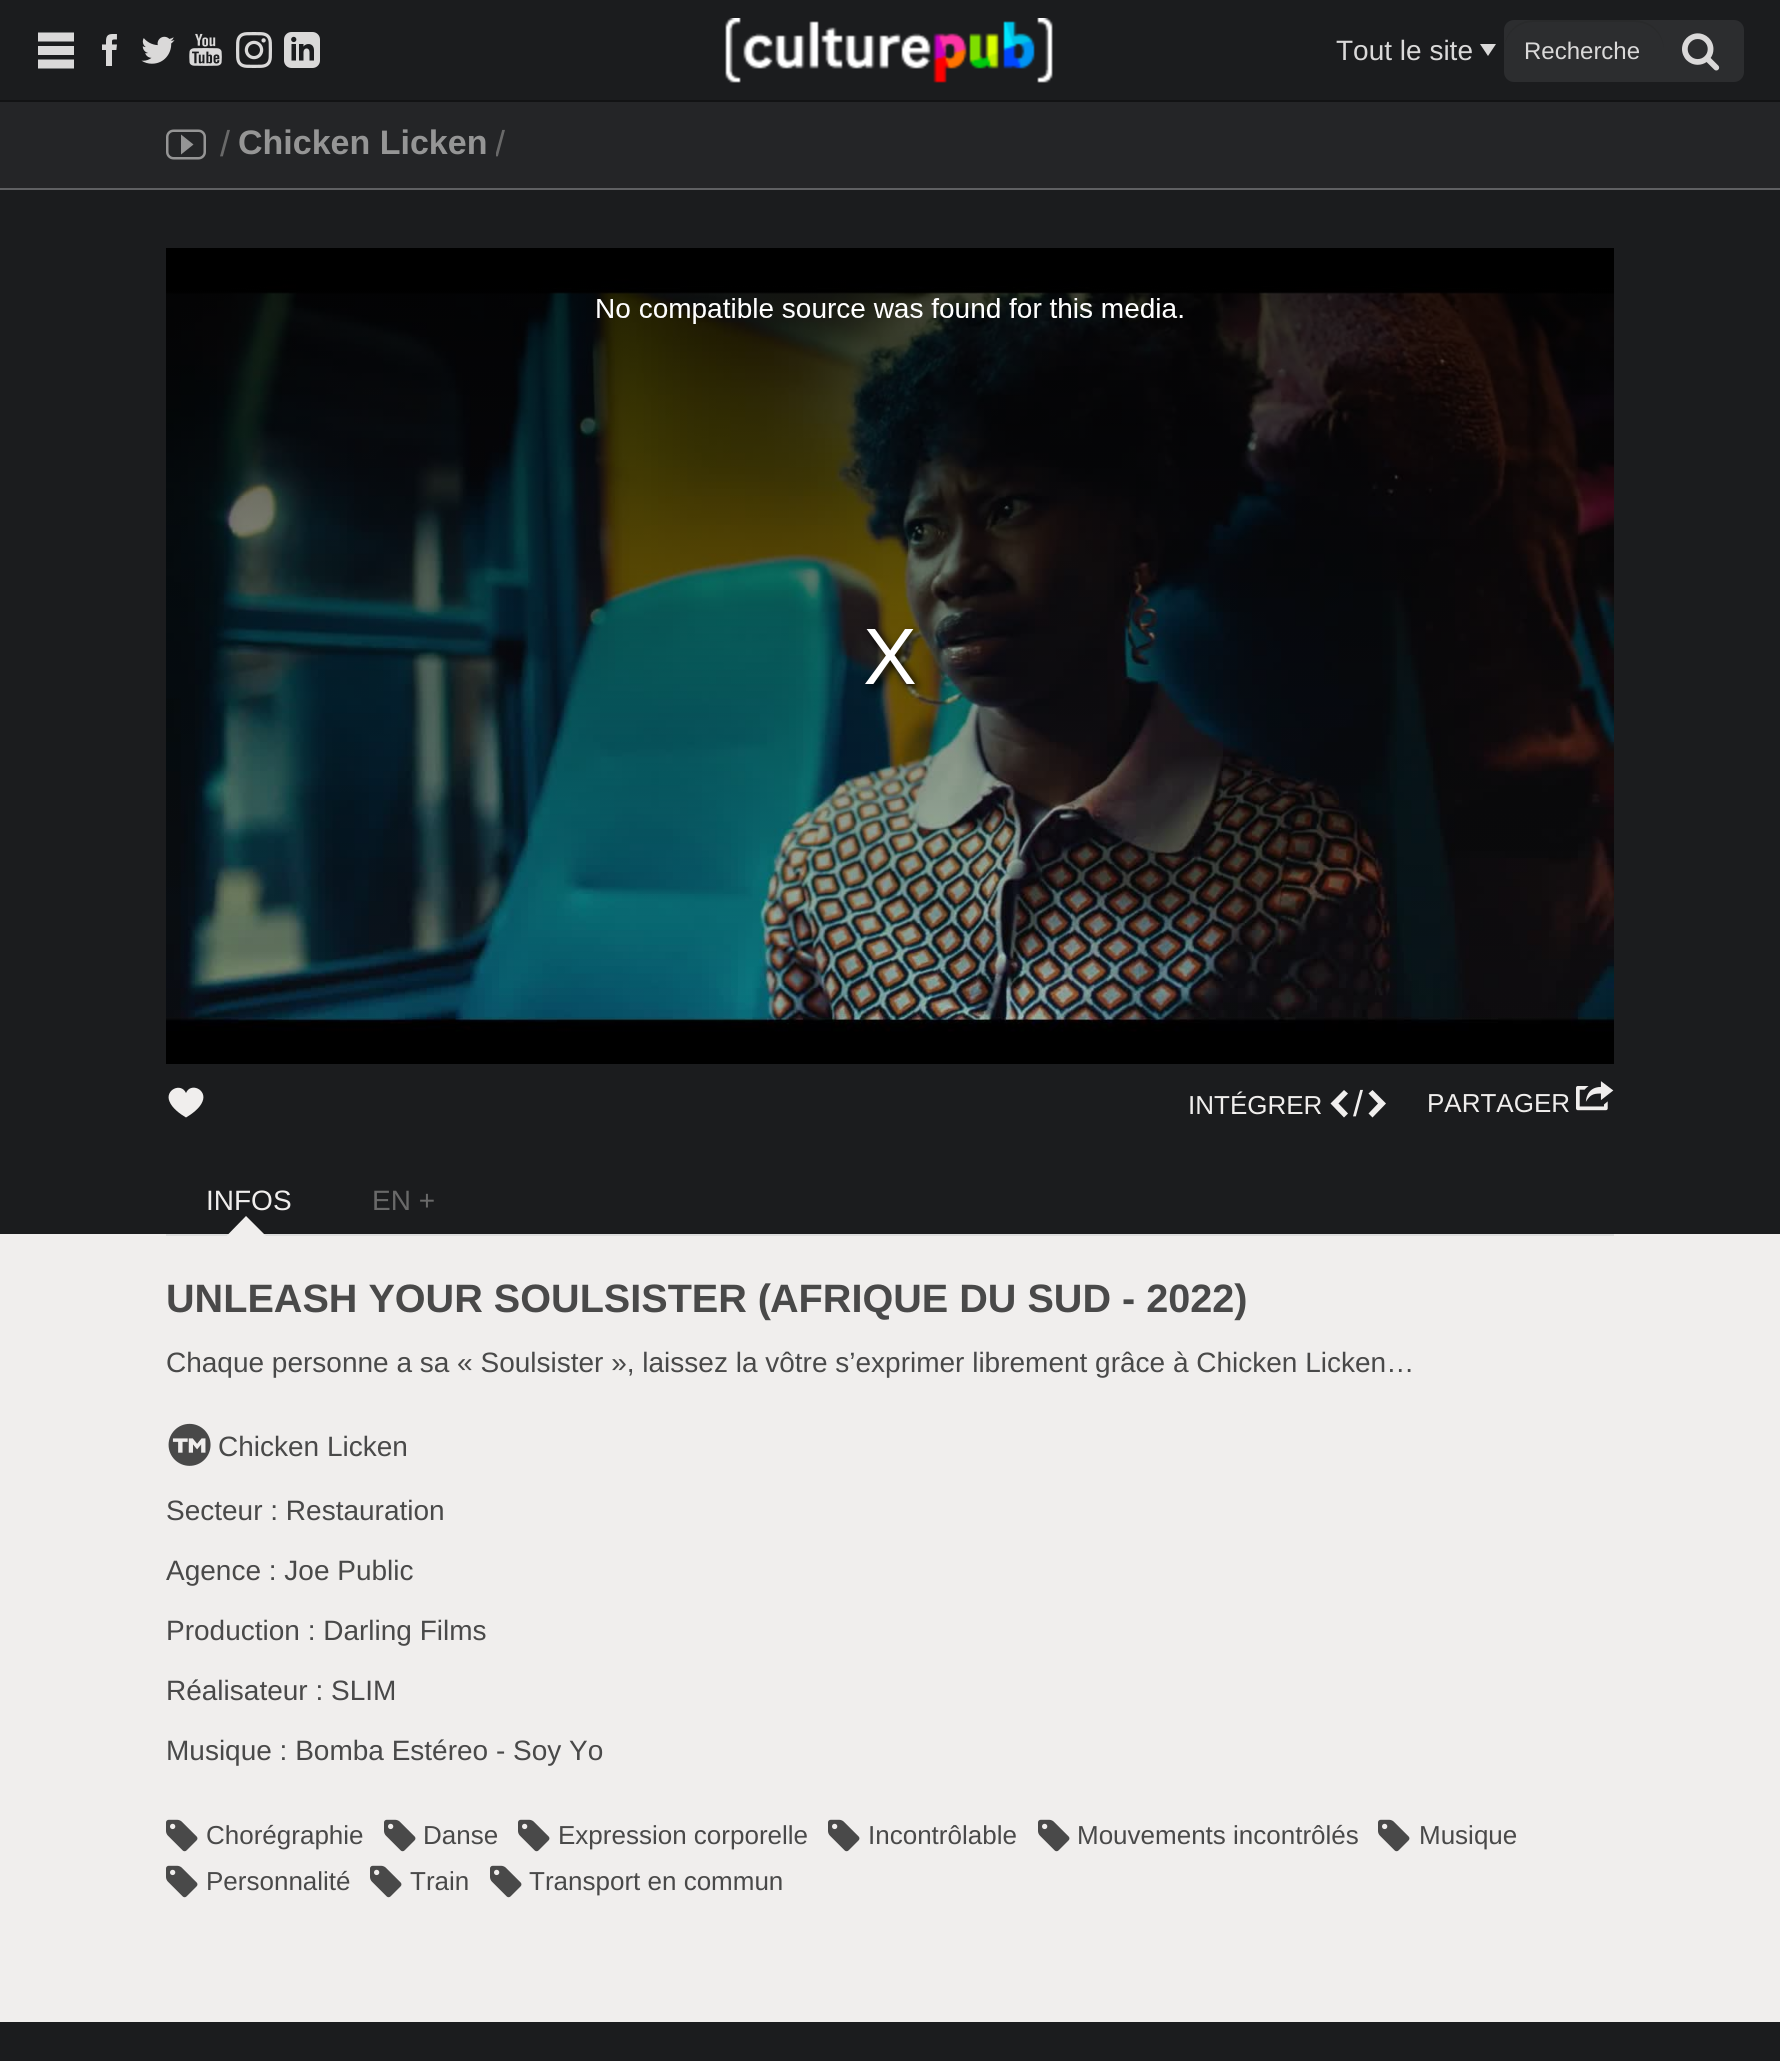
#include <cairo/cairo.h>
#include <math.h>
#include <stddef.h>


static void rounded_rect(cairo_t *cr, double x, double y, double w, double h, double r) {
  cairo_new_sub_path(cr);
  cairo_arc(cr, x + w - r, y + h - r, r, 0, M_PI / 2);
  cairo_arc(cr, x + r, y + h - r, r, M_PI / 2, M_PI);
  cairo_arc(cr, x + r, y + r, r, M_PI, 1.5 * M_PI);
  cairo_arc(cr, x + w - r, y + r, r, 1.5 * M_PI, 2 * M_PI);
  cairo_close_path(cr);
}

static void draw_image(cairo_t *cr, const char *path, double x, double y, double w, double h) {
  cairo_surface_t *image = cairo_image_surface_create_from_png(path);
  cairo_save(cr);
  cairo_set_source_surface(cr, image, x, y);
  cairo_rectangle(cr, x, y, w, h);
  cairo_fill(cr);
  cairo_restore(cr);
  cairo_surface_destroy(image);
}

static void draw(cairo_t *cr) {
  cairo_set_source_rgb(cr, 240 / 255.0, 238 / 255.0, 237 / 255.0);
  cairo_paint(cr);
  cairo_set_source_rgb(cr, 18 / 255.0, 19 / 255.0, 20 / 255.0);
  cairo_rectangle(cr, 0, 100, 1780, 2);
  cairo_fill(cr);
  cairo_set_source_rgb(cr, 27 / 255.0, 28 / 255.0, 30 / 255.0);
  cairo_rectangle(cr, 0, 0, 1780, 100);
  cairo_fill(cr);
  cairo_set_source_rgb(cr, 218 / 255.0, 217 / 255.0, 217 / 255.0);
  cairo_new_path(cr);
  cairo_move_to(cr, 38, 32.5);
  cairo_line_to(cr, 38, 41.5);
  cairo_line_to(cr, 74, 41.5);
  cairo_line_to(cr, 74, 32.5);
  cairo_close_path(cr);
  cairo_move_to(cr, 38, 55);
  cairo_line_to(cr, 74, 55);
  cairo_line_to(cr, 74, 46);
  cairo_line_to(cr, 38, 46);
  cairo_close_path(cr);
  cairo_move_to(cr, 38, 68.5);
  cairo_line_to(cr, 74, 68.5);
  cairo_line_to(cr, 74, 59.5);
  cairo_line_to(cr, 38, 59.5);
  cairo_close_path(cr);
  cairo_fill(cr);
  draw_image(cr, "images/1.png", 725, 18, 328, 65);
  draw_image(cr, "images/2.png", 102, 34, 15, 32);
  draw_image(cr, "images/3.png", 141, 36, 34, 28);
  draw_image(cr, "images/4.png", 189, 33, 33, 33);
  draw_image(cr, "images/5.png", 236, 32, 36, 36);
  draw_image(cr, "images/6.png", 284, 32, 36, 36);
  cairo_new_path(cr);
  cairo_move_to(cr, 1480, 44);
  cairo_line_to(cr, 1496, 44);
  cairo_line_to(cr, 1488, 56);
  cairo_close_path(cr);
  cairo_fill(cr);
  cairo_set_source_rgb(cr, 44 / 255.0, 45 / 255.0, 47 / 255.0);
  rounded_rect(cr, 1504, 20, 240, 62, 10);
  cairo_fill(cr);
  cairo_set_source_rgb(cr, 41 / 255.0, 42 / 255.0, 43 / 255.0);
  cairo_new_path(cr);
  cairo_move_to(cr, 1534, 22);
  cairo_line_to(cr, 1634, 22);
  cairo_curve_to(cr, 1651, 22, 1664, 35, 1664, 52);
  cairo_line_to(cr, 1664, 50);
  cairo_curve_to(cr, 1664, 33, 1651, 20, 1634, 20);
  cairo_line_to(cr, 1534, 20);
  cairo_curve_to(cr, 1517, 20, 1504, 33, 1504, 50);
  cairo_line_to(cr, 1504, 52);
  cairo_curve_to(cr, 1504, 35, 1517, 22, 1534, 22);
  cairo_close_path(cr);
  cairo_fill(cr);
  draw_image(cr, "images/7.png", 1682, 33, 38, 38);
  cairo_set_source_rgb(cr, 95 / 255.0, 96 / 255.0, 98 / 255.0);
  cairo_rectangle(cr, 0, 188, 1780, 2);
  cairo_fill(cr);
  cairo_set_source_rgb(cr, 36 / 255.0, 37 / 255.0, 39 / 255.0);
  cairo_rectangle(cr, 0, 102, 1780, 86);
  cairo_fill(cr);
  draw_image(cr, "images/8.png", 166, 129, 40, 31);
  cairo_set_source_rgb(cr, 27 / 255.0, 28 / 255.0, 30 / 255.0);
  cairo_rectangle(cr, 0, 190, 1780, 1044);
  cairo_fill(cr);
  draw_image(cr, "images/9.png", 166, 248, 1448, 816);
  cairo_set_source_rgb(cr, 240 / 255.0, 238 / 255.0, 237 / 255.0);
  cairo_new_path(cr);
  cairo_move_to(cr, 186, 1093);
  cairo_curve_to(cr, 181, 1082, 164.5, 1090, 169.5, 1101.5);
  cairo_curve_to(cr, 172, 1108, 180, 1114, 186, 1117.5);
  cairo_curve_to(cr, 192, 1114, 200, 1108, 202.5, 1101.5);
  cairo_curve_to(cr, 207.5, 1089.5, 190.5, 1082, 186, 1093);
  cairo_close_path(cr);
  cairo_fill(cr);
  cairo_new_path(cr);
  cairo_move_to(cr, 1330.5, 1103.5);
  cairo_line_to(cr, 1344, 1117.5);
  cairo_line_to(cr, 1348, 1113.5);
  cairo_line_to(cr, 1338.5, 1103.5);
  cairo_line_to(cr, 1348, 1093.5);
  cairo_line_to(cr, 1344, 1090);
  cairo_close_path(cr);
  cairo_fill(cr);
  cairo_new_path(cr);
  cairo_move_to(cr, 1386, 1103.5);
  cairo_line_to(cr, 1372.5, 1090);
  cairo_line_to(cr, 1368.5, 1093.5);
  cairo_line_to(cr, 1378, 1103.5);
  cairo_line_to(cr, 1368.5, 1113.5);
  cairo_line_to(cr, 1372.5, 1117.5);
  cairo_close_path(cr);
  cairo_fill(cr);
  draw_image(cr, "images/10.png", 1576, 1081, 38, 30);
  cairo_set_source_rgb(cr, 221 / 255.0, 221 / 255.0, 221 / 255.0);
  cairo_rectangle(cr, 166, 1234, 1448, 2);
  cairo_fill(cr);
  cairo_set_source_rgb(cr, 240 / 255.0, 238 / 255.0, 237 / 255.0);
  cairo_new_path(cr);
  cairo_move_to(cr, 226.5, 1236);
  cairo_line_to(cr, 246, 1216);
  cairo_line_to(cr, 266, 1236);
  cairo_line_to(cr, 246, 1256);
  cairo_close_path(cr);
  cairo_fill(cr);
  draw_image(cr, "images/11.png", 168, 1423, 43, 43);
  draw_image(cr, "images/12.png", 166, 1819, 32, 33);
  draw_image(cr, "images/12.png", 384, 1819, 32, 33);
  draw_image(cr, "images/12.png", 518, 1819, 32, 33);
  draw_image(cr, "images/12.png", 828, 1819, 32, 33);
  draw_image(cr, "images/12.png", 1038, 1819, 32, 33);
  draw_image(cr, "images/12.png", 1378, 1819, 32, 33);
  draw_image(cr, "images/12.png", 166, 1865, 32, 33);
  draw_image(cr, "images/12.png", 370, 1865, 32, 33);
  draw_image(cr, "images/12.png", 490, 1865, 32, 33);
  cairo_set_source_rgb(cr, 27 / 255.0, 28 / 255.0, 30 / 255.0);
  cairo_rectangle(cr, 0, 2022, 1780, 39);
  cairo_fill(cr);
  cairo_select_font_face(cr, "Liberation Sans", CAIRO_FONT_SLANT_NORMAL, CAIRO_FONT_WEIGHT_NORMAL);
  cairo_set_font_size(cr, 28);
  cairo_set_source_rgb(cr, 218 / 255.0, 217 / 255.0, 217 / 255.0);
  cairo_move_to(cr, 1336, 60);
  cairo_show_text(cr, "Tout le site");
  cairo_set_font_size(cr, 24);
  cairo_move_to(cr, 1524, 59);
  cairo_show_text(cr, "Recherche");
  cairo_set_font_size(cr, 36);
  cairo_set_source_rgb(cr, 105 / 255.0, 105 / 255.0, 105 / 255.0);
  cairo_move_to(cr, 220, 156);
  cairo_show_text(cr, "/");
  cairo_select_font_face(cr, "Liberation Sans", CAIRO_FONT_SLANT_NORMAL, CAIRO_FONT_WEIGHT_BOLD);
  cairo_set_font_size(cr, 34);
  cairo_set_source_rgb(cr, 149 / 255.0, 149 / 255.0, 149 / 255.0);
  cairo_move_to(cr, 238, 154);
  cairo_show_text(cr, "Chicken Licken");
  cairo_save(cr);
  cairo_rectangle(cr, 496, 100, 10, 88);
  cairo_clip(cr);
  cairo_select_font_face(cr, "Liberation Sans", CAIRO_FONT_SLANT_NORMAL, CAIRO_FONT_WEIGHT_NORMAL);
  cairo_set_font_size(cr, 36);
  cairo_set_source_rgb(cr, 105 / 255.0, 105 / 255.0, 105 / 255.0);
  cairo_move_to(cr, 495, 156);
  cairo_show_text(cr, "/");
  cairo_restore(cr);
  cairo_select_font_face(cr, "Liberation Sans", CAIRO_FONT_SLANT_NORMAL, CAIRO_FONT_WEIGHT_NORMAL);
  cairo_set_font_size(cr, 26);
  cairo_set_source_rgb(cr, 240 / 255.0, 238 / 255.0, 237 / 255.0);
  cairo_move_to(cr, 1188, 1114);
  cairo_show_text(cr, "INTÉGRER");
  cairo_set_font_size(cr, 36);
  cairo_move_to(cr, 1353, 1116);
  cairo_show_text(cr, "/");
  cairo_set_font_size(cr, 26);
  cairo_move_to(cr, 1427, 1112);
  cairo_show_text(cr, "PARTAGER");
  cairo_set_font_size(cr, 28);
  cairo_move_to(cr, 206, 1210);
  cairo_show_text(cr, "INFOS");
  cairo_set_source_rgb(cr, 105 / 255.0, 105 / 255.0, 105 / 255.0);
  cairo_move_to(cr, 372, 1210);
  cairo_show_text(cr, "EN +");
  cairo_select_font_face(cr, "Liberation Sans", CAIRO_FONT_SLANT_NORMAL, CAIRO_FONT_WEIGHT_BOLD);
  cairo_set_font_size(cr, 39.6);
  cairo_set_source_rgb(cr, 73 / 255.0, 73 / 255.0, 73 / 255.0);
  cairo_move_to(cr, 166, 1312);
  cairo_show_text(cr, "UNLEASH YOUR SOULSISTER (");
  cairo_move_to(cr, 770, 1312);
  cairo_show_text(cr, "AFRIQUE DU SUD - 2022)");
  cairo_select_font_face(cr, "Liberation Sans", CAIRO_FONT_SLANT_NORMAL, CAIRO_FONT_WEIGHT_NORMAL);
  cairo_set_font_size(cr, 28);
  cairo_move_to(cr, 166, 1372);
  cairo_show_text(cr, "Chaque personne a sa « Soulsister », laissez la vôtre s’exprimer librement grâce à Chicken Licken…");
  cairo_move_to(cr, 218, 1456);
  cairo_show_text(cr, "Chicken Licken");
  cairo_move_to(cr, 166, 1520);
  cairo_show_text(cr, "Secteur : Restauration");
  cairo_move_to(cr, 166, 1580);
  cairo_show_text(cr, "Agence : Joe Public");
  cairo_move_to(cr, 166, 1640);
  cairo_show_text(cr, "Production : Darling Films");
  cairo_move_to(cr, 166, 1700);
  cairo_show_text(cr, "Réalisateur : SLIM");
  cairo_move_to(cr, 166, 1760);
  cairo_show_text(cr, "Musique : Bomba Estéreo - Soy Yo");
  cairo_set_font_size(cr, 26);
  cairo_move_to(cr, 206, 1844);
  cairo_show_text(cr, "Chorégraphie");
  cairo_move_to(cr, 423, 1844);
  cairo_show_text(cr, "Danse");
  cairo_move_to(cr, 558, 1844);
  cairo_show_text(cr, "Expression corporelle");
  cairo_move_to(cr, 868, 1844);
  cairo_show_text(cr, "Incontrôlable");
  cairo_move_to(cr, 1077, 1844);
  cairo_show_text(cr, "Mouvements incontrôlés");
  cairo_move_to(cr, 1419, 1844);
  cairo_show_text(cr, "Musique");
  cairo_move_to(cr, 206, 1890);
  cairo_show_text(cr, "Personnalité");
  cairo_move_to(cr, 410, 1890);
  cairo_show_text(cr, "Train");
  cairo_move_to(cr, 529, 1890);
  cairo_show_text(cr, "Transport en commun");
}

int main(void) {
  cairo_surface_t *surface = cairo_image_surface_create(CAIRO_FORMAT_RGB24, 1780, 2061);
  cairo_t *cr = cairo_create(surface);
  cairo_font_options_t *options = cairo_font_options_create();
  cairo_font_options_set_hint_metrics(options, CAIRO_HINT_METRICS_OFF);
  cairo_font_options_set_hint_style(options, CAIRO_HINT_STYLE_NONE);
  cairo_set_font_options(cr, options);
  cairo_set_miter_limit(cr, 4);
  draw(cr);
  cairo_surface_write_to_png(surface, "out.png");
  cairo_font_options_destroy(options);
  cairo_destroy(cr);
  cairo_surface_destroy(surface);
  return 0;
}
